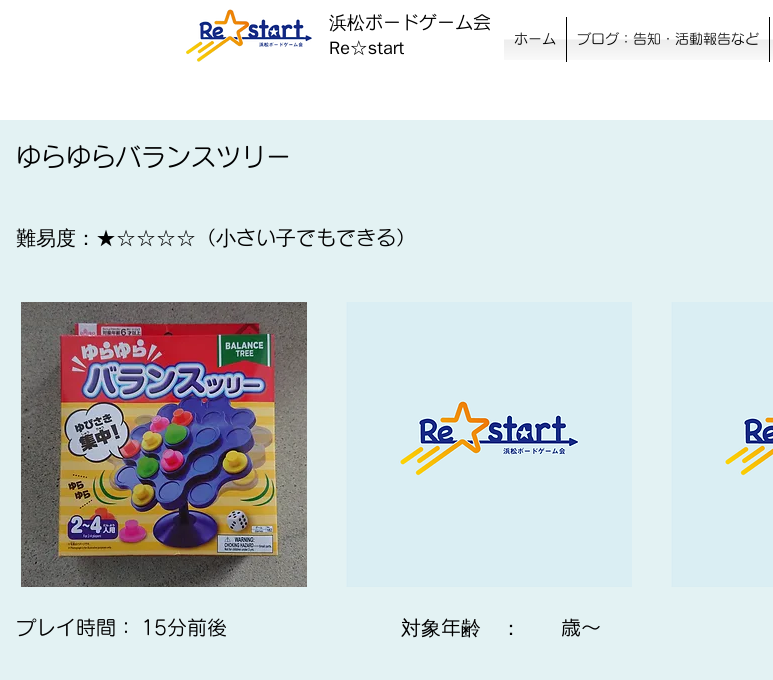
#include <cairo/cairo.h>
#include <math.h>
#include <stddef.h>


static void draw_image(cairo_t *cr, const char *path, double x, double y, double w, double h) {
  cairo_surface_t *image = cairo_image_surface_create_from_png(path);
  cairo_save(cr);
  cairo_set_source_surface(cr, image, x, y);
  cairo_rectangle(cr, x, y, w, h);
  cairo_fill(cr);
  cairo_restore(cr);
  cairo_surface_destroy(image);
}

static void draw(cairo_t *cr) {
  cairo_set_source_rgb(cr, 227 / 255.0, 242 / 255.0, 243 / 255.0);
  cairo_paint(cr);
  cairo_set_source_rgb(cr, 1, 1, 1);
  cairo_rectangle(cr, 0, 0, 773, 120);
  cairo_fill(cr);
  draw_image(cr, "images/1.png", 186, 9, 126, 53);
  cairo_set_source_rgb(cr, 0, 0, 0);
  cairo_rectangle(cr, 566, 17, 1, 45);
  cairo_fill(cr);
  cairo_rectangle(cr, 769, 17, 1, 45);
  cairo_fill(cr);
  draw_image(cr, "images/4.png", 770, 39, 3, 21);
  draw_image(cr, "images/5.png", 21, 302, 286, 285);
  draw_image(cr, "images/6.png", 346, 302, 286, 285);
  draw_image(cr, "images/7.png", 671, 302, 102, 285);
  cairo_select_font_face(cr, "WenQuanYi Zen Hei Medium", CAIRO_FONT_SLANT_NORMAL, CAIRO_FONT_WEIGHT_NORMAL);
  cairo_set_font_size(cr, 18);
  cairo_move_to(cr, 329, 29);
  cairo_show_text(cr, "浜松");
  cairo_select_font_face(cr, "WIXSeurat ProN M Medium", CAIRO_FONT_SLANT_NORMAL, CAIRO_FONT_WEIGHT_NORMAL);
  cairo_move_to(cr, 365, 29);
  cairo_show_text(cr, "ボードゲーム会");
  cairo_select_font_face(cr, "WenQuanYi Zen Hei Medium", CAIRO_FONT_SLANT_NORMAL, CAIRO_FONT_WEIGHT_NORMAL);
  cairo_move_to(cr, 329, 54);
  cairo_show_text(cr, "Re☆start");
  cairo_select_font_face(cr, "WIXSeurat ProN M Medium", CAIRO_FONT_SLANT_NORMAL, CAIRO_FONT_WEIGHT_NORMAL);
  cairo_set_font_size(cr, 14);
  cairo_move_to(cr, 514, 44);
  cairo_show_text(cr, "ホーム");
  draw_image(cr, "images/2.png", 504, 32, 62, 28);
  cairo_move_to(cr, 577, 44);
  cairo_show_text(cr, "ブログ：告知・活動報告など");
  draw_image(cr, "images/3.png", 567, 32, 202, 28);
  cairo_set_font_size(cr, 25);
  cairo_move_to(cr, 16, 166);
  cairo_show_text(cr, "ゆらゆらバランスツリー");
  cairo_select_font_face(cr, "WenQuanYi Zen Hei Medium", CAIRO_FONT_SLANT_NORMAL, CAIRO_FONT_WEIGHT_NORMAL);
  cairo_set_font_size(cr, 20);
  cairo_move_to(cr, 16, 245);
  cairo_show_text(cr, "難易度：★☆☆☆☆");
  cairo_select_font_face(cr, "WIXSeurat ProN M Medium", CAIRO_FONT_SLANT_NORMAL, CAIRO_FONT_WEIGHT_NORMAL);
  cairo_move_to(cr, 196, 245);
  cairo_show_text(cr, "（");
  cairo_select_font_face(cr, "WenQuanYi Zen Hei Medium", CAIRO_FONT_SLANT_NORMAL, CAIRO_FONT_WEIGHT_NORMAL);
  cairo_move_to(cr, 216, 245);
  cairo_show_text(cr, "小");
  cairo_select_font_face(cr, "WIXSeurat ProN M Medium", CAIRO_FONT_SLANT_NORMAL, CAIRO_FONT_WEIGHT_NORMAL);
  cairo_move_to(cr, 236, 245);
  cairo_show_text(cr, "さい");
  cairo_select_font_face(cr, "WenQuanYi Zen Hei Medium", CAIRO_FONT_SLANT_NORMAL, CAIRO_FONT_WEIGHT_NORMAL);
  cairo_move_to(cr, 276, 245);
  cairo_show_text(cr, "子");
  cairo_select_font_face(cr, "WIXSeurat ProN M Medium", CAIRO_FONT_SLANT_NORMAL, CAIRO_FONT_WEIGHT_NORMAL);
  cairo_move_to(cr, 296, 245);
  cairo_show_text(cr, "でもできる）");
  cairo_move_to(cr, 16, 635);
  cairo_show_text(cr, "プレイ時間：");
  cairo_move_to(cr, 141, 635);
  cairo_show_text(cr, "15分前後");
  cairo_select_font_face(cr, "WenQuanYi Zen Hei Medium", CAIRO_FONT_SLANT_NORMAL, CAIRO_FONT_WEIGHT_NORMAL);
  cairo_move_to(cr, 401, 635);
  cairo_show_text(cr, "対象");
  cairo_select_font_face(cr, "WIXSeurat ProN M Medium", CAIRO_FONT_SLANT_NORMAL, CAIRO_FONT_WEIGHT_NORMAL);
  cairo_move_to(cr, 441, 635);
  cairo_show_text(cr, "年");
  cairo_select_font_face(cr, "WenQuanYi Zen Hei Medium", CAIRO_FONT_SLANT_NORMAL, CAIRO_FONT_WEIGHT_NORMAL);
  cairo_move_to(cr, 461, 635);
  cairo_show_text(cr, "齢　：");
  cairo_select_font_face(cr, "WIXSeurat ProN M Medium", CAIRO_FONT_SLANT_NORMAL, CAIRO_FONT_WEIGHT_NORMAL);
  cairo_move_to(cr, 561, 635);
  cairo_show_text(cr, "歳～");
}

int main(void) {
  cairo_surface_t *surface = cairo_image_surface_create(CAIRO_FORMAT_RGB24, 773, 680);
  cairo_t *cr = cairo_create(surface);
  cairo_font_options_t *options = cairo_font_options_create();
  cairo_font_options_set_hint_metrics(options, CAIRO_HINT_METRICS_OFF);
  cairo_font_options_set_hint_style(options, CAIRO_HINT_STYLE_NONE);
  cairo_set_font_options(cr, options);
  cairo_set_miter_limit(cr, 4);
  draw(cr);
  cairo_surface_write_to_png(surface, "out.png");
  cairo_font_options_destroy(options);
  cairo_destroy(cr);
  cairo_surface_destroy(surface);
  return 0;
}
